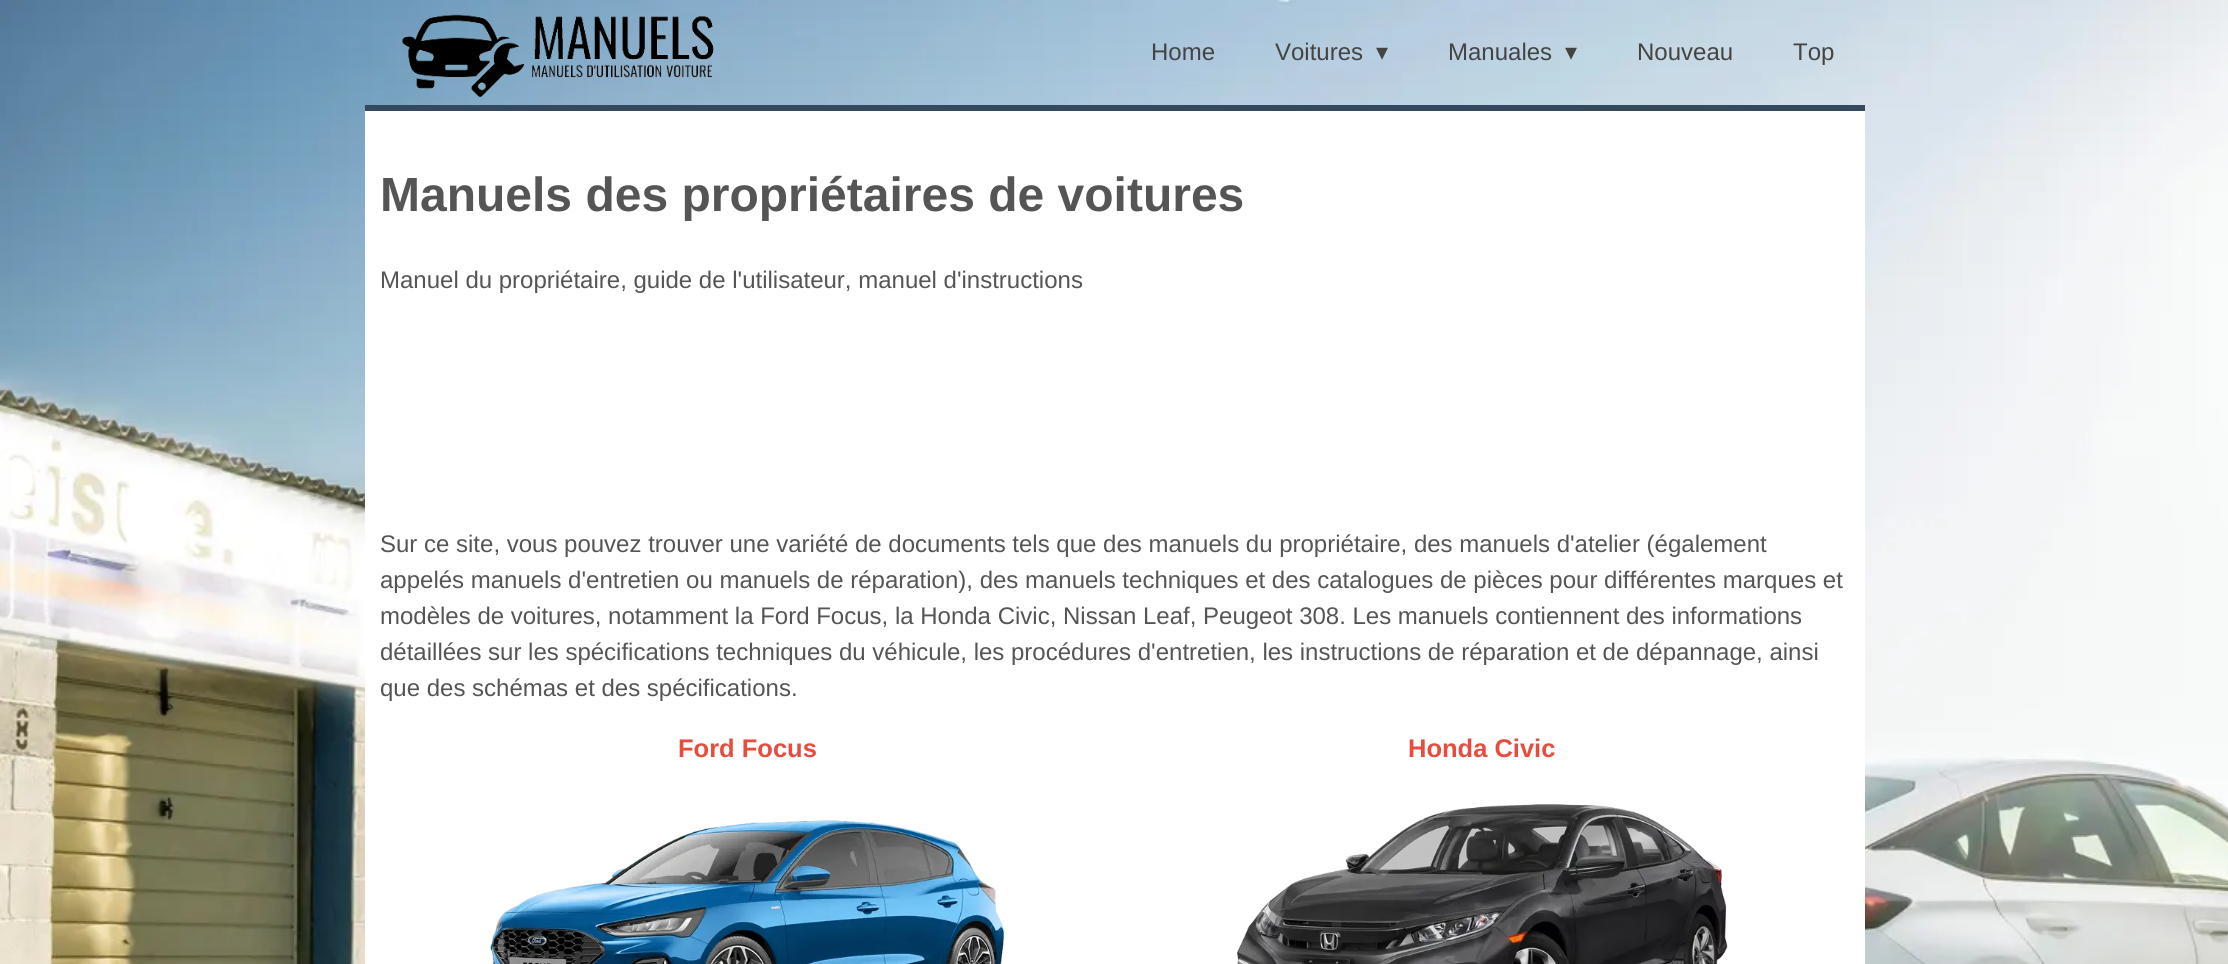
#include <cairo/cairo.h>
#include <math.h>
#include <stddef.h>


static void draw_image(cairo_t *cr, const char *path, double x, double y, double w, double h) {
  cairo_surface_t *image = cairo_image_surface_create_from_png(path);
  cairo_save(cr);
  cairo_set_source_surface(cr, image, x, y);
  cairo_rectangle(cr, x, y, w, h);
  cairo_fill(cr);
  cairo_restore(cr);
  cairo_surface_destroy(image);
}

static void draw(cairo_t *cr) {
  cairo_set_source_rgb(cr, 1, 1, 1);
  cairo_paint(cr);
  draw_image(cr, "images/1.png", 0, 0, 2228, 964);
  draw_image(cr, "images/2.png", 402, 14, 312, 84);
  cairo_set_source_rgb(cr, 1, 1, 1);
  cairo_rectangle(cr, 365, 111, 1500, 853);
  cairo_fill(cr);
  cairo_set_source_rgb(cr, 52 / 255.0, 73 / 255.0, 94 / 255.0);
  cairo_rectangle(cr, 365, 105, 1500, 6);
  cairo_fill(cr);
  draw_image(cr, "images/3.png", 490, 820, 515, 144);
  draw_image(cr, "images/4.png", 1237, 804, 491, 160);
  cairo_select_font_face(cr, "Liberation Sans", CAIRO_FONT_SLANT_NORMAL, CAIRO_FONT_WEIGHT_NORMAL);
  cairo_set_font_size(cr, 24);
  cairo_set_source_rgb(cr, 68 / 255.0, 68 / 255.0, 68 / 255.0);
  cairo_move_to(cr, 1151, 60);
  cairo_show_text(cr, "Home");
  cairo_move_to(cr, 1275, 60);
  cairo_show_text(cr, "Voitures");
  cairo_select_font_face(cr, "DejaVu Sans", CAIRO_FONT_SLANT_NORMAL, CAIRO_FONT_WEIGHT_NORMAL);
  cairo_move_to(cr, 1376, 60);
  cairo_show_text(cr, "▾");
  cairo_select_font_face(cr, "Liberation Sans", CAIRO_FONT_SLANT_NORMAL, CAIRO_FONT_WEIGHT_NORMAL);
  cairo_move_to(cr, 1448, 60);
  cairo_show_text(cr, "Manuales");
  cairo_select_font_face(cr, "DejaVu Sans", CAIRO_FONT_SLANT_NORMAL, CAIRO_FONT_WEIGHT_NORMAL);
  cairo_move_to(cr, 1565, 60);
  cairo_show_text(cr, "▾");
  cairo_select_font_face(cr, "Liberation Sans", CAIRO_FONT_SLANT_NORMAL, CAIRO_FONT_WEIGHT_NORMAL);
  cairo_move_to(cr, 1637, 60);
  cairo_show_text(cr, "Nouveau");
  cairo_move_to(cr, 1793, 60);
  cairo_show_text(cr, "Top");
  cairo_select_font_face(cr, "Liberation Sans", CAIRO_FONT_SLANT_NORMAL, CAIRO_FONT_WEIGHT_BOLD);
  cairo_set_font_size(cr, 48);
  cairo_set_source_rgb(cr, 85 / 255.0, 85 / 255.0, 85 / 255.0);
  cairo_move_to(cr, 380, 211);
  cairo_show_text(cr, "Manuels des propriétaires de voitures");
  cairo_select_font_face(cr, "Liberation Sans", CAIRO_FONT_SLANT_NORMAL, CAIRO_FONT_WEIGHT_NORMAL);
  cairo_set_font_size(cr, 24);
  cairo_move_to(cr, 380, 288);
  cairo_show_text(cr, "Manuel du propriétaire, guide de l'utilisateur, manuel d'instructions");
  cairo_move_to(cr, 380, 552);
  cairo_show_text(cr, "Sur ce site, vous pouvez trouver une variété de documents tels que des manuels du propriétaire, des manuels d'atelier (également");
  cairo_move_to(cr, 380, 588);
  cairo_show_text(cr, "appelés manuels d'entretien ou manuels de réparation), des manuels techniques et des catalogues de pièces pour différentes marques et");
  cairo_move_to(cr, 380, 624);
  cairo_show_text(cr, "modèles de voitures, notamment la Ford Focus, la Honda Civic, Nissan Leaf, Peugeot 308. Les manuels contiennent des informations");
  cairo_move_to(cr, 380, 660);
  cairo_show_text(cr, "détaillées sur les spécifications techniques du véhicule, les procédures d'entretien, les instructions de réparation et de dépannage, ainsi");
  cairo_move_to(cr, 380, 696);
  cairo_show_text(cr, "que des schémas et des spécifications.");
  cairo_select_font_face(cr, "Liberation Sans", CAIRO_FONT_SLANT_NORMAL, CAIRO_FONT_WEIGHT_BOLD);
  cairo_set_font_size(cr, 25.5);
  cairo_set_source_rgb(cr, 232 / 255.0, 76 / 255.0, 61 / 255.0);
  cairo_move_to(cr, 678, 757);
  cairo_show_text(cr, "Ford Focus");
  cairo_move_to(cr, 1408, 757);
  cairo_show_text(cr, "Honda Civic");
}

int main(void) {
  cairo_surface_t *surface = cairo_image_surface_create(CAIRO_FORMAT_RGB24, 2228, 964);
  cairo_t *cr = cairo_create(surface);
  cairo_font_options_t *options = cairo_font_options_create();
  cairo_font_options_set_hint_metrics(options, CAIRO_HINT_METRICS_OFF);
  cairo_font_options_set_hint_style(options, CAIRO_HINT_STYLE_NONE);
  cairo_set_font_options(cr, options);
  cairo_set_miter_limit(cr, 4);
  draw(cr);
  cairo_surface_write_to_png(surface, "out.png");
  cairo_font_options_destroy(options);
  cairo_destroy(cr);
  cairo_surface_destroy(surface);
  return 0;
}
